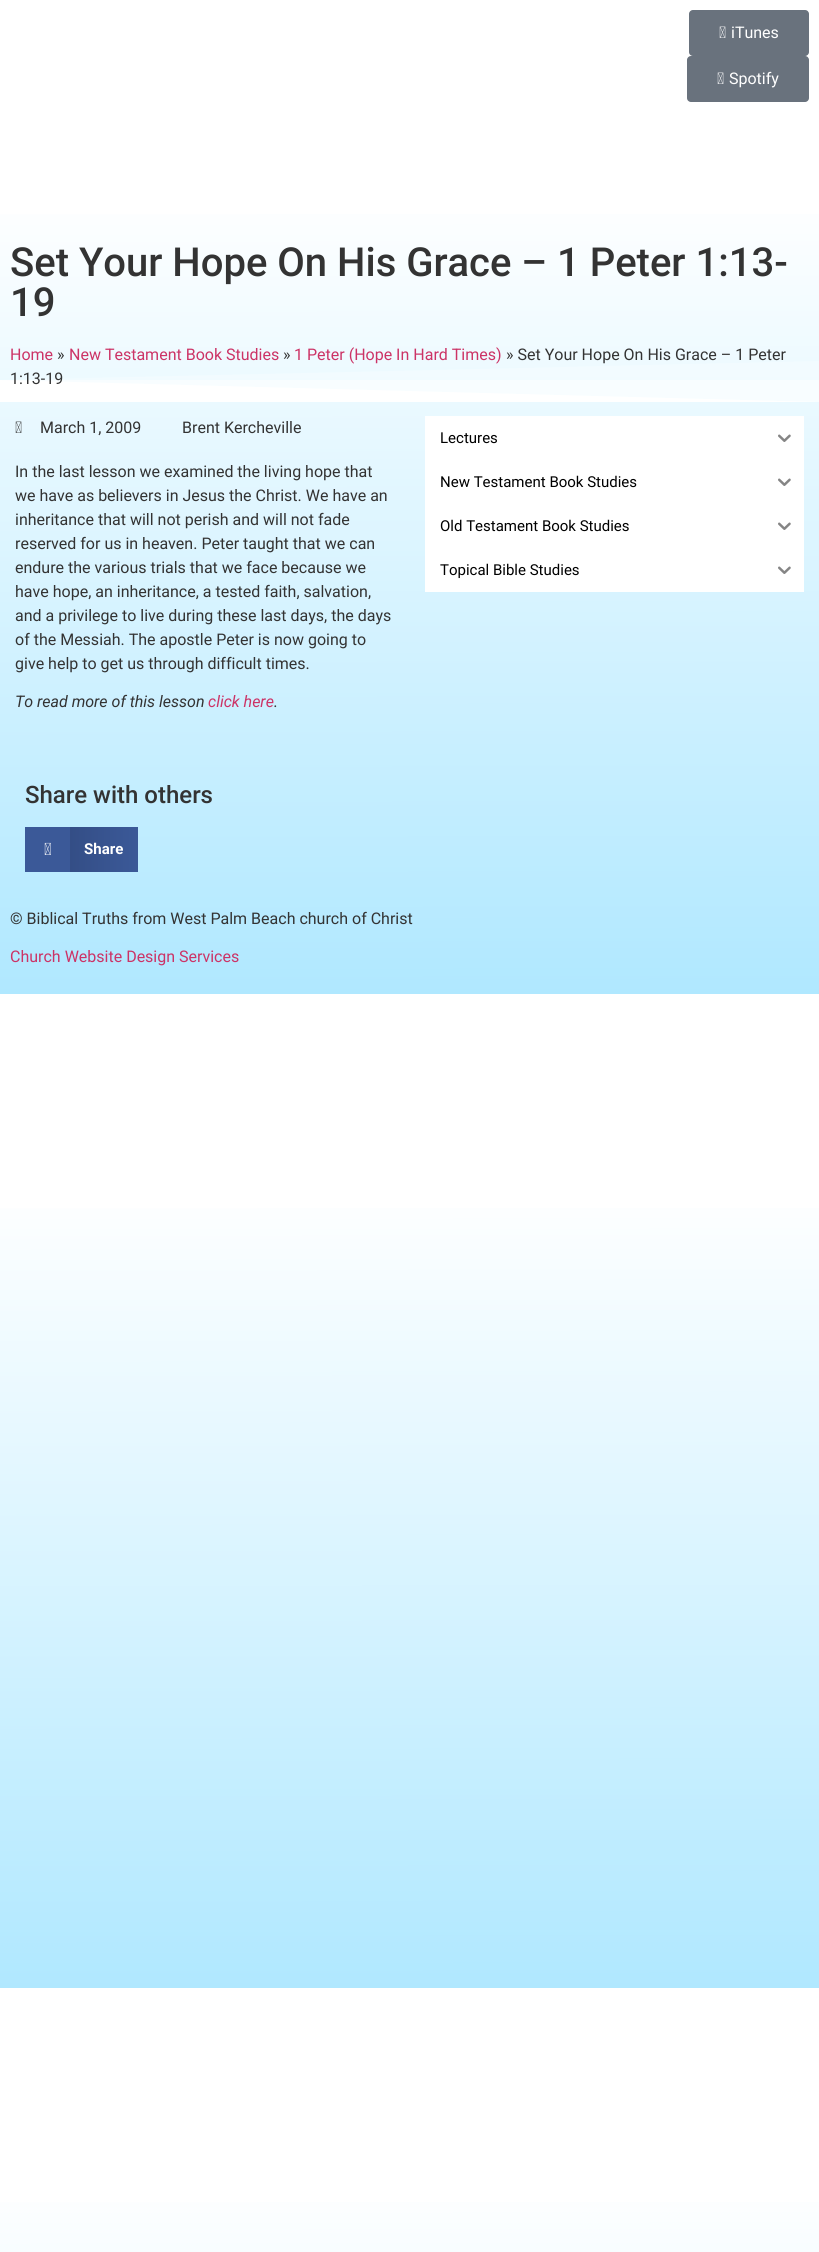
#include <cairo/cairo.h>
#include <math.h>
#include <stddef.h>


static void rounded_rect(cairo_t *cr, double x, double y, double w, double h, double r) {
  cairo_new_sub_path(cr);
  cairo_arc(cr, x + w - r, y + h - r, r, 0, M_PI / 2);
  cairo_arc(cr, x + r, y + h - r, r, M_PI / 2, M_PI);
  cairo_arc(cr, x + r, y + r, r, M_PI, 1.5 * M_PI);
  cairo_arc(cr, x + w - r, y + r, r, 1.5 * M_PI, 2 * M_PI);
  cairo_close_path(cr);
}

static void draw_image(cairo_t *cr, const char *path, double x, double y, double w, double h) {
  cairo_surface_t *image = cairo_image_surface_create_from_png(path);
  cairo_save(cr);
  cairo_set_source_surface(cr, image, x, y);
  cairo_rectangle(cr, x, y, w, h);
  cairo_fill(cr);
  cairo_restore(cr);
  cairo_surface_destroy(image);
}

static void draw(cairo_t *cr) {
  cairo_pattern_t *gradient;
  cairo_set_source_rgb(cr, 1, 1, 1);
  cairo_paint(cr);
  gradient = cairo_pattern_create_linear(409, 0, 410, 994);
  cairo_pattern_add_color_stop_rgba(gradient, 0.19, 1, 1, 1, 1);
  cairo_pattern_add_color_stop_rgba(gradient, 1, 176 / 255.0, 232 / 255.0, 1, 1);
  cairo_set_source(cr, gradient);
  cairo_pattern_destroy(gradient);
  cairo_rectangle(cr, 0, 214, 819, 780);
  cairo_fill(cr);
  gradient = cairo_pattern_create_linear(409, 0, 410, 994);
  cairo_pattern_add_color_stop_rgba(gradient, 0.19, 1, 1, 1, 1);
  cairo_pattern_add_color_stop_rgba(gradient, 1, 216 / 255.0, 244 / 255.0, 1, 1);
  cairo_set_source(cr, gradient);
  cairo_pattern_destroy(gradient);
  cairo_rectangle(cr, 1, 380, 818, 22);
  cairo_fill(cr);
  gradient = cairo_pattern_create_linear(409, 994, 410, 1988);
  cairo_pattern_add_color_stop_rgba(gradient, 0.19, 1, 1, 1, 1);
  cairo_pattern_add_color_stop_rgba(gradient, 1, 176 / 255.0, 232 / 255.0, 1, 1);
  cairo_set_source(cr, gradient);
  cairo_pattern_destroy(gradient);
  cairo_rectangle(cr, 0, 1208, 819, 780);
  cairo_fill(cr);
  gradient = cairo_pattern_create_linear(409, 1988, 410, 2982);
  cairo_pattern_add_color_stop_rgba(gradient, 0.19, 1, 1, 1, 1);
  cairo_pattern_add_color_stop_rgba(gradient, 1, 176 / 255.0, 232 / 255.0, 1, 1);
  cairo_set_source(cr, gradient);
  cairo_pattern_destroy(gradient);
  cairo_rectangle(cr, 0, 2202, 819, 50);
  cairo_fill(cr);
  cairo_set_source_rgb(cr, 105 / 255.0, 114 / 255.0, 125 / 255.0);
  rounded_rect(cr, 689, 10, 120, 46, 4);
  cairo_fill(cr);
  draw_image(cr, "images/1.png", 719, 26, 7, 12);
  rounded_rect(cr, 687, 56, 122, 46, 4);
  cairo_fill(cr);
  draw_image(cr, "images/1.png", 717, 72, 7, 12);
  cairo_set_source_rgb(cr, 1, 1, 1);
  cairo_new_path(cr);
  cairo_move_to(cr, 819, 402);
  cairo_line_to(cr, -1, 402);
  cairo_line_to(cr, -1, 380);
  cairo_close_path(cr);
  cairo_fill(cr);
  cairo_set_source_rgba(cr, 1, 1, 1, 0.25);
  cairo_new_path(cr);
  cairo_move_to(cr, -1, 402);
  cairo_line_to(cr, 819, 402);
  cairo_line_to(cr, 819, 361);
  cairo_line_to(cr, -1, 380);
  cairo_close_path(cr);
  cairo_fill(cr);
  draw_image(cr, "images/2.png", 15, 421, 7, 12);
  cairo_set_source_rgb(cr, 59 / 255.0, 89 / 255.0, 152 / 255.0);
  cairo_rectangle(cr, 25, 827, 45, 45);
  cairo_fill(cr);
  draw_image(cr, "images/3.png", 44, 842, 7, 13);
  gradient = cairo_pattern_create_linear(70, 850, 138, 850);
  cairo_pattern_add_color_stop_rgba(gradient, 0, 52 / 255.0, 78 / 255.0, 134 / 255.0, 1);
  cairo_pattern_add_color_stop_rgba(gradient, 1, 59 / 255.0, 89 / 255.0, 152 / 255.0, 1);
  cairo_set_source(cr, gradient);
  cairo_pattern_destroy(gradient);
  cairo_rectangle(cr, 70, 827, 68, 45);
  cairo_fill(cr);
  cairo_set_source_rgb(cr, 1, 1, 1);
  cairo_rectangle(cr, 425, 416, 379, 176);
  cairo_fill(cr);
  draw_image(cr, "images/4.png", 778, 434, 13, 8);
  draw_image(cr, "images/4.png", 778, 478, 13, 8);
  draw_image(cr, "images/4.png", 778, 522, 13, 8);
  draw_image(cr, "images/4.png", 778, 566, 13, 8);
  cairo_select_font_face(cr, "Roboto", CAIRO_FONT_SLANT_NORMAL, CAIRO_FONT_WEIGHT_NORMAL);
  cairo_set_font_size(cr, 16);
  cairo_move_to(cr, 731, 38);
  cairo_show_text(cr, "iTunes");
  cairo_move_to(cr, 729, 84);
  cairo_show_text(cr, "Spotify");
  cairo_select_font_face(cr, "Roboto Medium", CAIRO_FONT_SLANT_NORMAL, CAIRO_FONT_WEIGHT_NORMAL);
  cairo_set_font_size(cr, 40);
  cairo_set_source_rgb(cr, 51 / 255.0, 51 / 255.0, 51 / 255.0);
  cairo_move_to(cr, 10, 276);
  cairo_show_text(cr, "Set Your Hope On His Grace – 1 Peter 1:13-");
  cairo_move_to(cr, 10, 316);
  cairo_show_text(cr, "19");
  cairo_select_font_face(cr, "Roboto", CAIRO_FONT_SLANT_NORMAL, CAIRO_FONT_WEIGHT_NORMAL);
  cairo_set_font_size(cr, 16);
  cairo_set_source_rgb(cr, 204 / 255.0, 51 / 255.0, 102 / 255.0);
  cairo_move_to(cr, 10, 360);
  cairo_show_text(cr, "Home");
  cairo_set_source_rgb(cr, 51 / 255.0, 51 / 255.0, 51 / 255.0);
  cairo_move_to(cr, 57, 360);
  cairo_show_text(cr, "»");
  cairo_set_source_rgb(cr, 204 / 255.0, 51 / 255.0, 102 / 255.0);
  cairo_move_to(cr, 69, 360);
  cairo_show_text(cr, "New Testament Book Studies");
  cairo_set_source_rgb(cr, 51 / 255.0, 51 / 255.0, 51 / 255.0);
  cairo_move_to(cr, 283, 360);
  cairo_show_text(cr, "»");
  cairo_set_source_rgb(cr, 204 / 255.0, 51 / 255.0, 102 / 255.0);
  cairo_move_to(cr, 294, 360);
  cairo_show_text(cr, "1 Peter (Hope In Hard Times)");
  cairo_set_source_rgb(cr, 51 / 255.0, 51 / 255.0, 51 / 255.0);
  cairo_move_to(cr, 506, 360);
  cairo_show_text(cr, "» Set Your Hope On His Grace – 1 Peter");
  cairo_move_to(cr, 10, 384);
  cairo_show_text(cr, "1:13-19");
  cairo_move_to(cr, 40, 433);
  cairo_show_text(cr, "March 1, 2009");
  cairo_move_to(cr, 182, 433);
  cairo_show_text(cr, "Brent Kercheville");
  cairo_move_to(cr, 15, 477);
  cairo_show_text(cr, "In the last lesson we examined the living hope that");
  cairo_move_to(cr, 15, 501);
  cairo_show_text(cr, "we have as believers in Jesus the Christ. We have an");
  cairo_move_to(cr, 15, 525);
  cairo_show_text(cr, "inheritance that will not perish and will not fade");
  cairo_move_to(cr, 15, 549);
  cairo_show_text(cr, "reserved for us in heaven. Peter taught that we can");
  cairo_move_to(cr, 15, 573);
  cairo_show_text(cr, "endure the various trials that we face because we");
  cairo_move_to(cr, 15, 597);
  cairo_show_text(cr, "have hope, an inheritance, a tested faith, salvation,");
  cairo_move_to(cr, 15, 621);
  cairo_show_text(cr, "and a privilege to live during these last days, the days");
  cairo_move_to(cr, 15, 645);
  cairo_show_text(cr, "of the Messiah. The apostle Peter is now going to");
  cairo_move_to(cr, 15, 669);
  cairo_show_text(cr, "give help to get us through difficult times.");
  cairo_select_font_face(cr, "Roboto", CAIRO_FONT_SLANT_ITALIC, CAIRO_FONT_WEIGHT_NORMAL);
  cairo_move_to(cr, 15, 707);
  cairo_show_text(cr, "To read more of this lesson");
  cairo_set_source_rgb(cr, 204 / 255.0, 51 / 255.0, 102 / 255.0);
  cairo_move_to(cr, 208, 707);
  cairo_show_text(cr, "click here");
  cairo_set_source_rgb(cr, 51 / 255.0, 51 / 255.0, 51 / 255.0);
  cairo_move_to(cr, 274, 707);
  cairo_show_text(cr, ".");
  cairo_select_font_face(cr, "Roboto Medium", CAIRO_FONT_SLANT_NORMAL, CAIRO_FONT_WEIGHT_NORMAL);
  cairo_set_font_size(cr, 24);
  cairo_move_to(cr, 25, 803);
  cairo_show_text(cr, "Share with others");
  cairo_select_font_face(cr, "Roboto", CAIRO_FONT_SLANT_NORMAL, CAIRO_FONT_WEIGHT_BOLD);
  cairo_set_font_size(cr, 15);
  cairo_set_source_rgb(cr, 1, 1, 1);
  cairo_move_to(cr, 84, 854);
  cairo_show_text(cr, "Share");
  cairo_select_font_face(cr, "Roboto", CAIRO_FONT_SLANT_NORMAL, CAIRO_FONT_WEIGHT_NORMAL);
  cairo_set_source_rgb(cr, 0, 0, 0);
  cairo_move_to(cr, 440, 443);
  cairo_show_text(cr, "Lectures");
  cairo_move_to(cr, 440, 487);
  cairo_show_text(cr, "New Testament Book Studies");
  cairo_move_to(cr, 440, 531);
  cairo_show_text(cr, "Old Testament Book Studies");
  cairo_move_to(cr, 440, 575);
  cairo_show_text(cr, "Topical Bible Studies");
  cairo_set_font_size(cr, 16);
  cairo_set_source_rgb(cr, 51 / 255.0, 51 / 255.0, 51 / 255.0);
  cairo_move_to(cr, 10, 924);
  cairo_show_text(cr, "© Biblical Truths from West Palm Beach church of Christ");
  cairo_set_source_rgb(cr, 204 / 255.0, 51 / 255.0, 102 / 255.0);
  cairo_move_to(cr, 10, 962);
  cairo_show_text(cr, "Church Website Design Services");
}

int main(void) {
  cairo_surface_t *surface = cairo_image_surface_create(CAIRO_FORMAT_RGB24, 819, 2252);
  cairo_t *cr = cairo_create(surface);
  cairo_font_options_t *options = cairo_font_options_create();
  cairo_font_options_set_hint_metrics(options, CAIRO_HINT_METRICS_OFF);
  cairo_font_options_set_hint_style(options, CAIRO_HINT_STYLE_NONE);
  cairo_set_font_options(cr, options);
  cairo_set_miter_limit(cr, 4);
  draw(cr);
  cairo_surface_write_to_png(surface, "out.png");
  cairo_font_options_destroy(options);
  cairo_destroy(cr);
  cairo_surface_destroy(surface);
  return 0;
}
